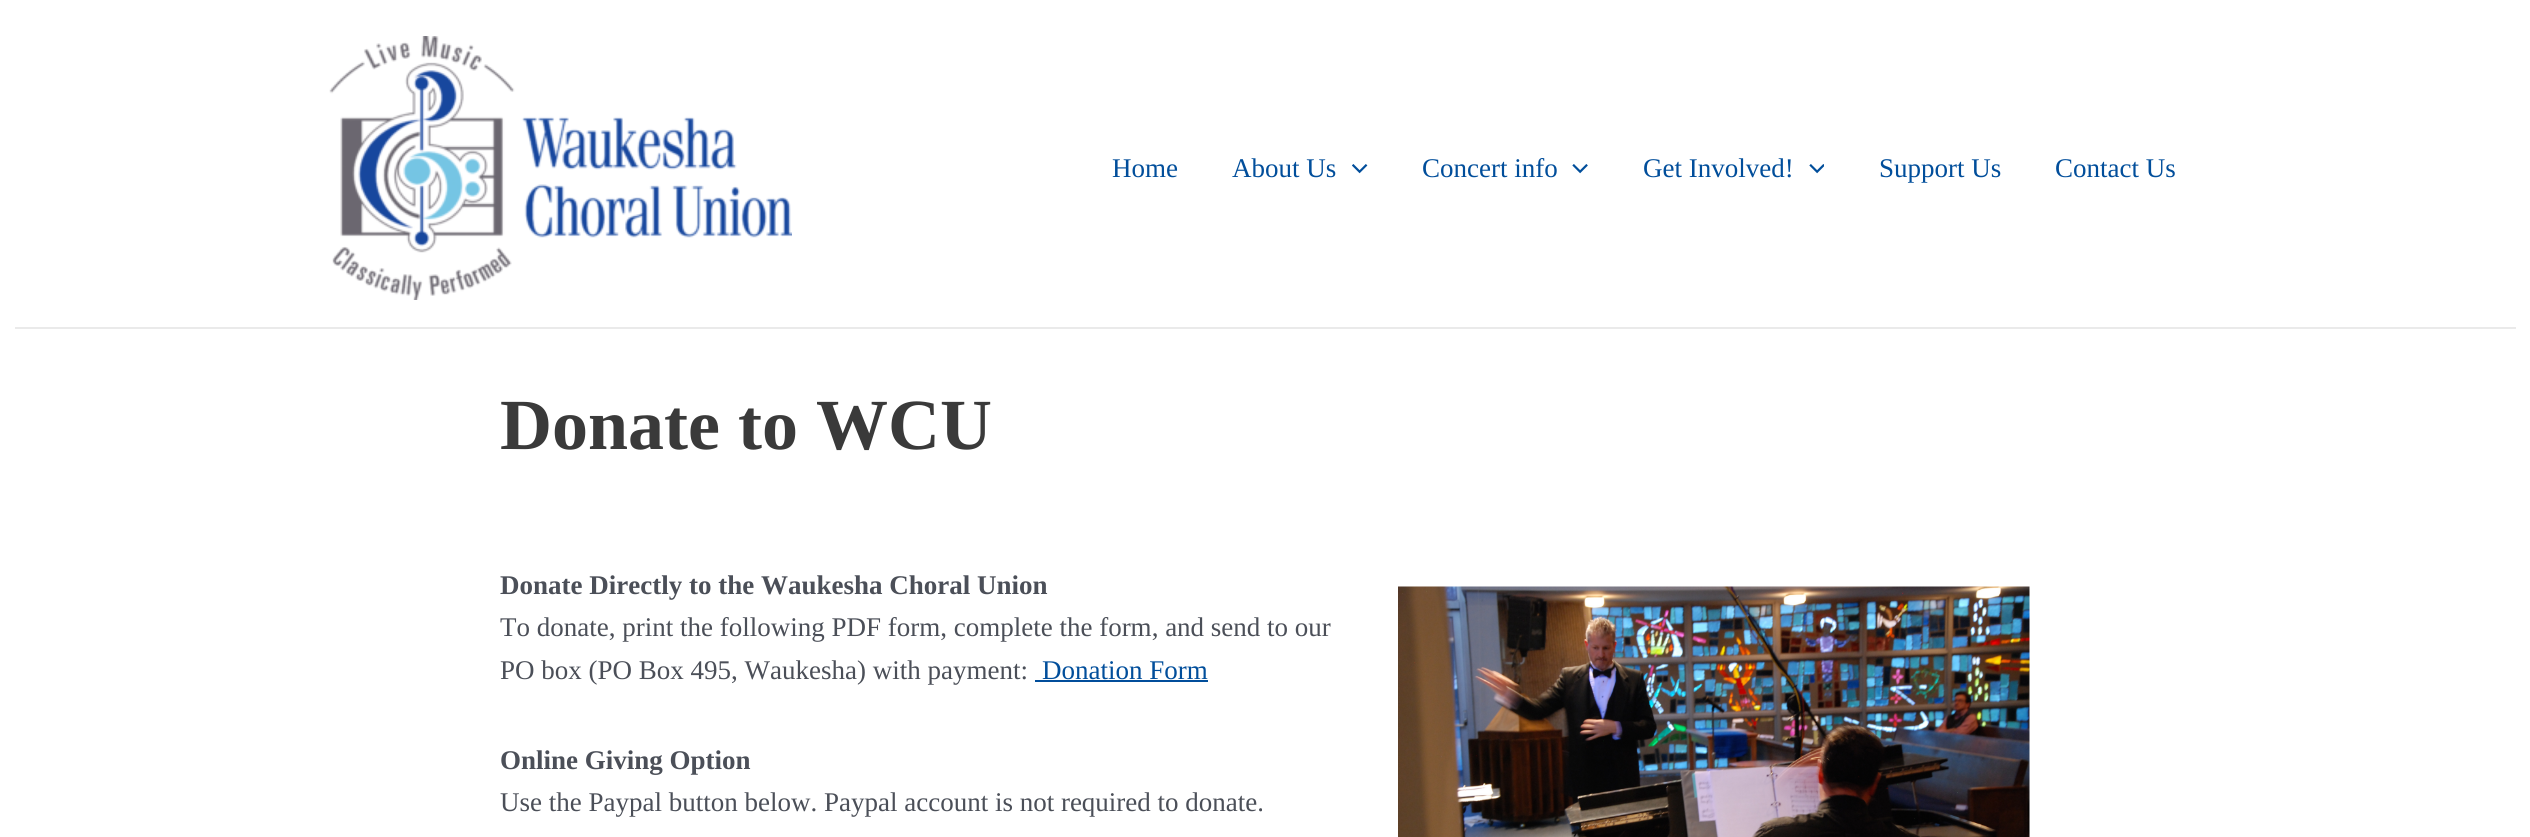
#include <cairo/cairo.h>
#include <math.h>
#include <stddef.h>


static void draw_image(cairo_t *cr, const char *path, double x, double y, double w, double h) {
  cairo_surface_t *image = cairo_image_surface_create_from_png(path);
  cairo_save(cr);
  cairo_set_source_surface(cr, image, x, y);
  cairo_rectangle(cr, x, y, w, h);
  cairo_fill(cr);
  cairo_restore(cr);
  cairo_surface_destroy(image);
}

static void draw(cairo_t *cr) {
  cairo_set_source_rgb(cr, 1, 1, 1);
  cairo_paint(cr);
  cairo_set_source_rgb(cr, 234 / 255.0, 234 / 255.0, 234 / 255.0);
  cairo_rectangle(cr, 15, 327, 2501, 2);
  cairo_fill(cr);
  draw_image(cr, "images/1.png", 329, 36, 463, 264);
  draw_image(cr, "images/2.png", 1352, 164, 16, 10);
  draw_image(cr, "images/3.png", 1572, 164, 16, 10);
  draw_image(cr, "images/4.png", 1809, 164, 15, 10);
  cairo_set_source_rgb(cr, 1 / 255.0, 78 / 255.0, 155 / 255.0);
  cairo_rectangle(cr, 1035, 680, 173, 2);
  cairo_fill(cr);
  draw_image(cr, "images/5.png", 1398, 586, 632, 251);
  cairo_select_font_face(cr, "Liberation Serif", CAIRO_FONT_SLANT_NORMAL, CAIRO_FONT_WEIGHT_NORMAL);
  cairo_set_font_size(cr, 27);
  cairo_move_to(cr, 1112, 177);
  cairo_show_text(cr, "Home");
  cairo_move_to(cr, 1232, 177);
  cairo_show_text(cr, "About Us");
  cairo_move_to(cr, 1422, 177);
  cairo_show_text(cr, "Concert info");
  cairo_move_to(cr, 1643, 177);
  cairo_show_text(cr, "Get Involved!");
  cairo_move_to(cr, 1879, 177);
  cairo_show_text(cr, "Support Us");
  cairo_move_to(cr, 2055, 177);
  cairo_show_text(cr, "Contact Us");
  cairo_select_font_face(cr, "Liberation Serif", CAIRO_FONT_SLANT_NORMAL, CAIRO_FONT_WEIGHT_BOLD);
  cairo_set_font_size(cr, 72);
  cairo_set_source_rgb(cr, 58 / 255.0, 58 / 255.0, 58 / 255.0);
  cairo_move_to(cr, 500, 449);
  cairo_show_text(cr, "Donate to WCU");
  cairo_set_font_size(cr, 27);
  cairo_set_source_rgb(cr, 75 / 255.0, 79 / 255.0, 88 / 255.0);
  cairo_move_to(cr, 500, 594);
  cairo_show_text(cr, "Donate Directly to the Waukesha Choral Union");
  cairo_select_font_face(cr, "Liberation Serif", CAIRO_FONT_SLANT_NORMAL, CAIRO_FONT_WEIGHT_NORMAL);
  cairo_move_to(cr, 500, 636);
  cairo_show_text(cr, "To donate, print the following PDF form, complete the form, and send to our");
  cairo_move_to(cr, 500, 679);
  cairo_show_text(cr, "PO box (PO Box 495, Waukesha) with payment:");
  cairo_set_source_rgb(cr, 1 / 255.0, 78 / 255.0, 155 / 255.0);
  cairo_move_to(cr, 1042, 679);
  cairo_show_text(cr, "Donation Form");
  cairo_select_font_face(cr, "Liberation Serif", CAIRO_FONT_SLANT_NORMAL, CAIRO_FONT_WEIGHT_BOLD);
  cairo_set_source_rgb(cr, 75 / 255.0, 79 / 255.0, 88 / 255.0);
  cairo_move_to(cr, 500, 769);
  cairo_show_text(cr, "Online Giving Option");
  cairo_select_font_face(cr, "Liberation Serif", CAIRO_FONT_SLANT_NORMAL, CAIRO_FONT_WEIGHT_NORMAL);
  cairo_move_to(cr, 500, 811);
  cairo_show_text(cr, "Use the Paypal button below. Paypal account is not required to donate.");
}

int main(void) {
  cairo_surface_t *surface = cairo_image_surface_create(CAIRO_FORMAT_RGB24, 2530, 837);
  cairo_t *cr = cairo_create(surface);
  cairo_font_options_t *options = cairo_font_options_create();
  cairo_font_options_set_hint_metrics(options, CAIRO_HINT_METRICS_OFF);
  cairo_font_options_set_hint_style(options, CAIRO_HINT_STYLE_NONE);
  cairo_set_font_options(cr, options);
  cairo_set_miter_limit(cr, 4);
  draw(cr);
  cairo_surface_write_to_png(surface, "out.png");
  cairo_font_options_destroy(options);
  cairo_destroy(cr);
  cairo_surface_destroy(surface);
  return 0;
}
